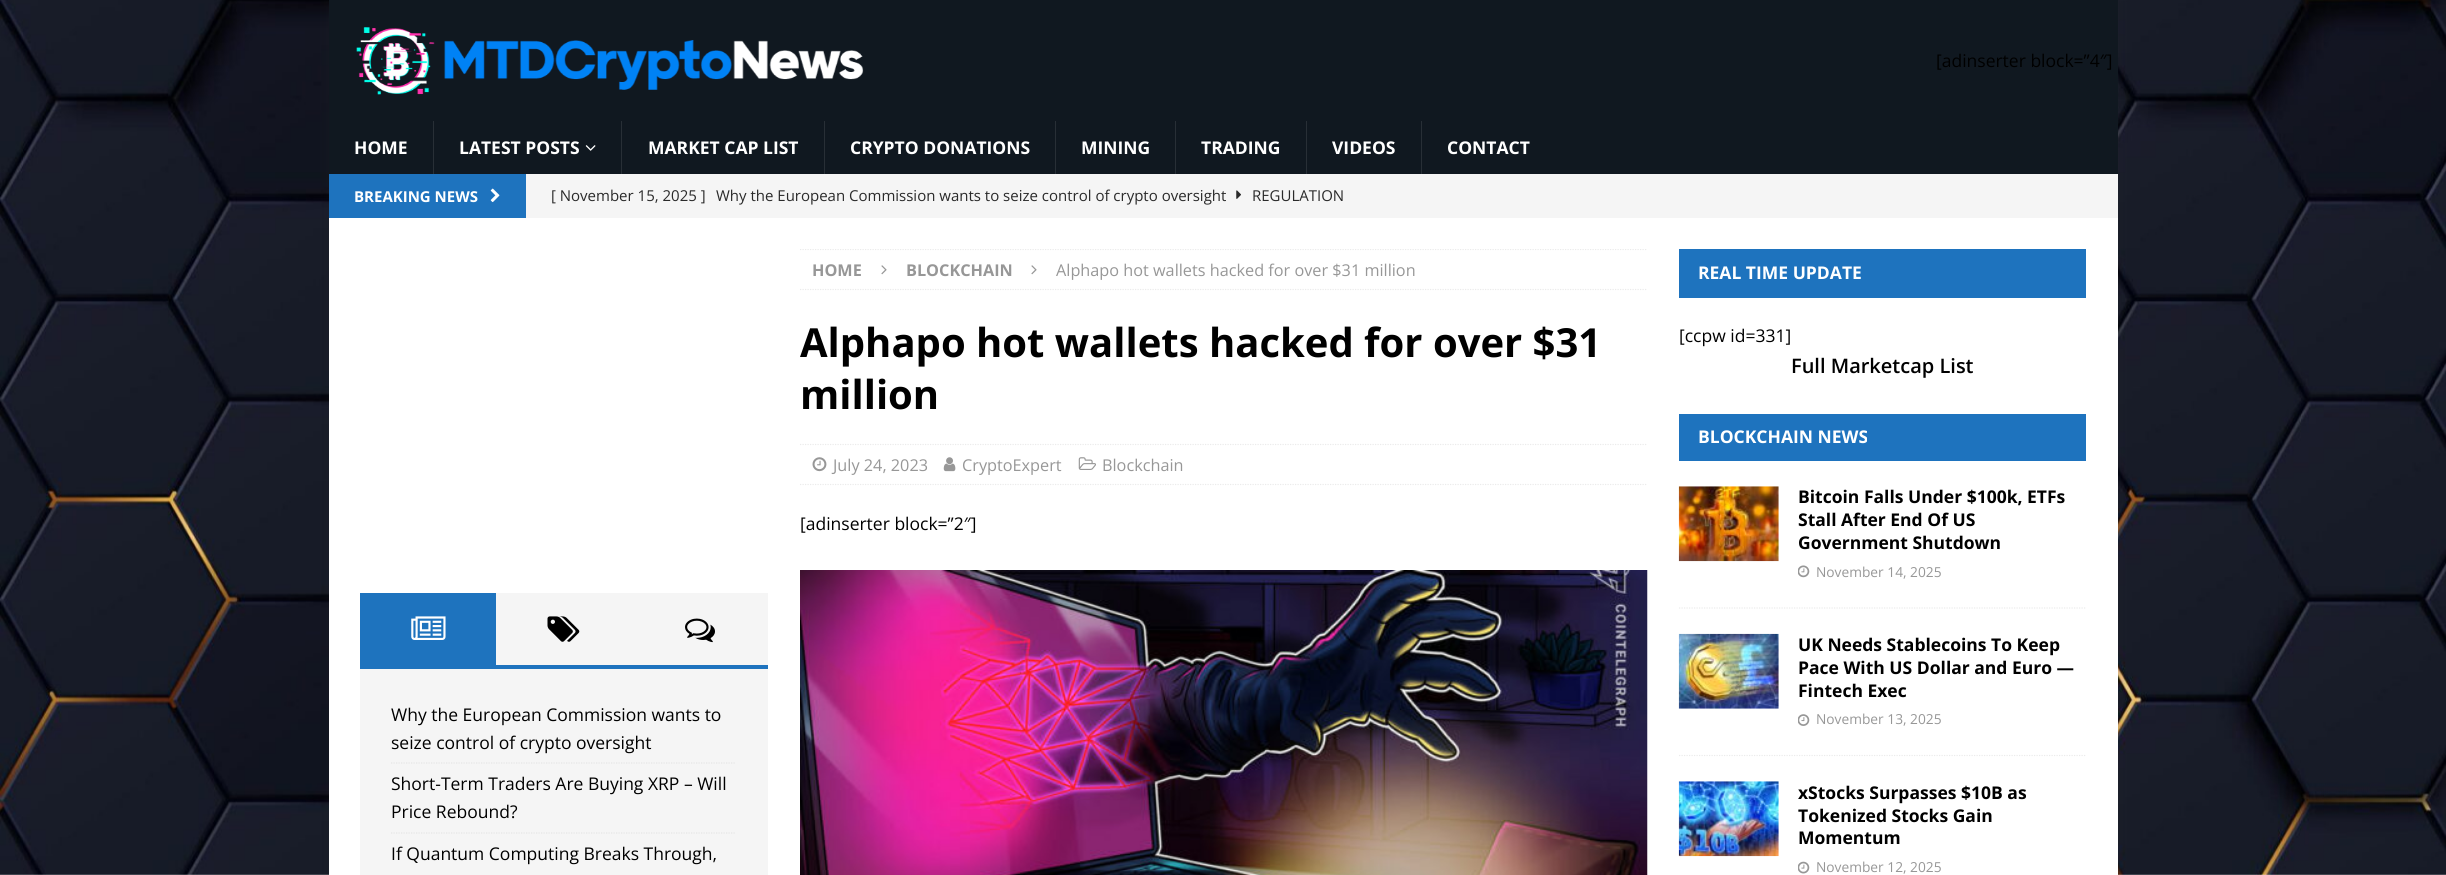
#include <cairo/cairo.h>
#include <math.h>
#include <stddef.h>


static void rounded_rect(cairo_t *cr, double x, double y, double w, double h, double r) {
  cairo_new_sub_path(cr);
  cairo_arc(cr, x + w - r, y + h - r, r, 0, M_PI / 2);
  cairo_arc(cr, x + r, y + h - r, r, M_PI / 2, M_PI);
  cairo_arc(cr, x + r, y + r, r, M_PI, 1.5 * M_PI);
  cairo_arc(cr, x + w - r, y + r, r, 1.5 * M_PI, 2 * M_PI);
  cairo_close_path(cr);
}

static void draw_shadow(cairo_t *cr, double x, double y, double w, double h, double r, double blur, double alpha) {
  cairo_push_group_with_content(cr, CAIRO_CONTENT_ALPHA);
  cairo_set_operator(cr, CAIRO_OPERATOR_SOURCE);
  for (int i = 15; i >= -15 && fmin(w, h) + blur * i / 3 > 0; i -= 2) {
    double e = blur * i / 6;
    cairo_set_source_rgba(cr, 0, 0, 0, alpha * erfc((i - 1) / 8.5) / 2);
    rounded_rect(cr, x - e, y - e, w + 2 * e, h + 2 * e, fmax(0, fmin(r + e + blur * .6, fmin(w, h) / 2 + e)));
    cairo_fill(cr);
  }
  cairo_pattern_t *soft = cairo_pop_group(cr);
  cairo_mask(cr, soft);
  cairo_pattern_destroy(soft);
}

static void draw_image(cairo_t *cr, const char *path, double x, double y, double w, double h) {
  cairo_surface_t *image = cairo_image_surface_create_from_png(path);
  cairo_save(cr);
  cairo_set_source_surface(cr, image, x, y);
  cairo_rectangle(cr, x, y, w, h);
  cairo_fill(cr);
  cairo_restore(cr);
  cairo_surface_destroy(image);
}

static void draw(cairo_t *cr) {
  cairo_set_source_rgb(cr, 1, 1, 1);
  cairo_paint(cr);
  draw_image(cr, "images/1.png", 0, 0, 2446, 875);
  cairo_set_source_rgb(cr, 50 / 255.0, 50 / 255.0, 50 / 255.0);
  draw_shadow(cr, 329, 0, 1789, 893, 0, 6, 0.17);
  cairo_set_source_rgb(cr, 16 / 255.0, 24 / 255.0, 32 / 255.0);
  cairo_rectangle(cr, 329, 0, 1789, 174);
  cairo_fill(cr);
  draw_image(cr, "images/2.png", 356, 27, 508, 68);
  cairo_set_source_rgb(cr, 40 / 255.0, 47 / 255.0, 54 / 255.0);
  cairo_rectangle(cr, 433, 121, 1, 53);
  cairo_fill(cr);
  draw_image(cr, "images/3.png", 585, 145, 11, 6);
  cairo_rectangle(cr, 621, 121, 1, 53);
  cairo_fill(cr);
  cairo_rectangle(cr, 824, 121, 1, 53);
  cairo_fill(cr);
  cairo_rectangle(cr, 1055, 121, 1, 53);
  cairo_fill(cr);
  cairo_rectangle(cr, 1175, 121, 1, 53);
  cairo_fill(cr);
  cairo_rectangle(cr, 1306, 121, 1, 53);
  cairo_fill(cr);
  cairo_rectangle(cr, 1421, 121, 1, 53);
  cairo_fill(cr);
  cairo_set_source_rgb(cr, 245 / 255.0, 245 / 255.0, 245 / 255.0);
  cairo_rectangle(cr, 526, 174, 1592, 44);
  cairo_fill(cr);
  cairo_set_source_rgb(cr, 30 / 255.0, 115 / 255.0, 190 / 255.0);
  cairo_rectangle(cr, 329, 174, 197, 44);
  cairo_fill(cr);
  draw_image(cr, "images/4.png", 490, 188, 10, 15);
  draw_image(cr, "images/5.png", 1236, 190, 5, 9);
  cairo_set_source_rgb(cr, 1, 1, 1);
  cairo_rectangle(cr, 329, 218, 1789, 657);
  cairo_fill(cr);
  cairo_save(cr);
  cairo_rectangle(cr, 800, 249, 848, 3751);
  cairo_clip(cr);
  cairo_new_path(cr);
  cairo_move_to(cr, 800, 249.5);
  cairo_line_to(cr, 1647.5, 249.5);
  cairo_set_source_rgb(cr, 235 / 255.0, 235 / 255.0, 235 / 255.0);
  cairo_set_line_width(cr, 1.2);
  cairo_set_dash(cr, (double[]){1.25, 1.25}, 2, 0);
  cairo_stroke(cr);
  cairo_restore(cr);
  cairo_new_path(cr);
  cairo_move_to(cr, 800, 289.5);
  cairo_line_to(cr, 1647.5, 289.5);
  cairo_set_source_rgb(cr, 235 / 255.0, 235 / 255.0, 235 / 255.0);
  cairo_set_line_width(cr, 1.2);
  cairo_set_dash(cr, (double[]){1.25, 1.25}, 2, 0);
  cairo_stroke(cr);
  draw_image(cr, "images/6.png", 881, 265, 6, 10);
  draw_image(cr, "images/6.png", 1031, 265, 6, 10);
  cairo_new_path(cr);
  cairo_move_to(cr, 800, 444.5);
  cairo_line_to(cr, 1647.5, 444.5);
  cairo_stroke(cr);
  cairo_new_path(cr);
  cairo_move_to(cr, 800, 484.5);
  cairo_line_to(cr, 1647.5, 484.5);
  cairo_stroke(cr);
  draw_image(cr, "images/7.png", 812, 457, 15, 15);
  draw_image(cr, "images/8.png", 943, 457, 13, 15);
  draw_image(cr, "images/9.png", 1078, 457, 18, 13);
  draw_image(cr, "images/10.png", 800, 570, 848, 305);
  cairo_set_source_rgb(cr, 30 / 255.0, 115 / 255.0, 190 / 255.0);
  cairo_rectangle(cr, 360, 665, 408, 4);
  cairo_fill(cr);
  cairo_rectangle(cr, 360, 593, 136, 72);
  cairo_fill(cr);
  draw_image(cr, "images/11.png", 411, 616, 35, 24);
  cairo_set_source_rgb(cr, 245 / 255.0, 245 / 255.0, 245 / 255.0);
  cairo_rectangle(cr, 496, 593, 272, 72);
  cairo_fill(cr);
  draw_image(cr, "images/12.png", 547, 616, 33, 26);
  draw_image(cr, "images/13.png", 685, 618, 30, 25);
  cairo_rectangle(cr, 360, 669, 408, 206);
  cairo_fill(cr);
  cairo_new_path(cr);
  cairo_move_to(cr, 391, 763);
  cairo_line_to(cr, 736, 763);
  cairo_set_source_rgb(cr, 229 / 255.0, 229 / 255.0, 229 / 255.0);
  cairo_stroke(cr);
  cairo_new_path(cr);
  cairo_move_to(cr, 391, 833);
  cairo_line_to(cr, 736, 833);
  cairo_stroke(cr);
  cairo_set_source_rgb(cr, 30 / 255.0, 115 / 255.0, 190 / 255.0);
  cairo_rectangle(cr, 1679, 249, 407, 49);
  cairo_fill(cr);
  cairo_rectangle(cr, 1679, 414, 407, 47);
  cairo_fill(cr);
  cairo_new_path(cr);
  cairo_move_to(cr, 1679, 608);
  cairo_line_to(cr, 2086, 608);
  cairo_set_source_rgb(cr, 235 / 255.0, 235 / 255.0, 235 / 255.0);
  cairo_stroke(cr);
  draw_image(cr, "images/14.png", 1678, 486, 101, 76);
  draw_image(cr, "images/15.png", 1798, 565, 12, 13);
  cairo_new_path(cr);
  cairo_move_to(cr, 1679, 755.5);
  cairo_line_to(cr, 2086, 755.5);
  cairo_stroke(cr);
  draw_image(cr, "images/16.png", 1678, 633, 101, 76);
  draw_image(cr, "images/17.png", 1798, 714, 12, 12);
  draw_image(cr, "images/18.png", 1678, 781, 101, 76);
  draw_image(cr, "images/19.png", 1798, 861, 12, 13);
  cairo_select_font_face(cr, "Open Sans", CAIRO_FONT_SLANT_NORMAL, CAIRO_FONT_WEIGHT_NORMAL);
  cairo_set_font_size(cr, 17.5);
  cairo_set_source_rgb(cr, 0, 0, 0);
  cairo_move_to(cr, 1936, 67);
  cairo_show_text(cr, "[adinserter block=”4″]");
  cairo_select_font_face(cr, "Open Sans", CAIRO_FONT_SLANT_NORMAL, CAIRO_FONT_WEIGHT_BOLD);
  cairo_set_source_rgb(cr, 1, 1, 1);
  cairo_move_to(cr, 354, 154);
  cairo_show_text(cr, "HOME");
  cairo_move_to(cr, 459, 154);
  cairo_show_text(cr, "LATEST POSTS");
  cairo_move_to(cr, 648, 154);
  cairo_show_text(cr, "MARKET CAP LIST");
  cairo_move_to(cr, 850, 154);
  cairo_show_text(cr, "CRYPTO DONATIONS");
  cairo_move_to(cr, 1081, 154);
  cairo_show_text(cr, "MINING");
  cairo_move_to(cr, 1201, 154);
  cairo_show_text(cr, "TRADING");
  cairo_move_to(cr, 1332, 154);
  cairo_show_text(cr, "VIDEOS");
  cairo_move_to(cr, 1447, 154);
  cairo_show_text(cr, "CONTACT");
  cairo_set_font_size(cr, 15);
  cairo_move_to(cr, 354, 202);
  cairo_show_text(cr, "BREAKING NEWS");
  cairo_select_font_face(cr, "Open Sans", CAIRO_FONT_SLANT_NORMAL, CAIRO_FONT_WEIGHT_NORMAL);
  cairo_set_source_rgb(cr, 42 / 255.0, 42 / 255.0, 42 / 255.0);
  cairo_move_to(cr, 551, 201);
  cairo_show_text(cr, "[ November 15, 2025 ]");
  cairo_move_to(cr, 716, 201);
  cairo_show_text(cr, "Why the European Commission wants to seize control of crypto oversight");
  cairo_move_to(cr, 1252, 201);
  cairo_show_text(cr, "REGULATION");
  cairo_select_font_face(cr, "Open Sans", CAIRO_FONT_SLANT_NORMAL, CAIRO_FONT_WEIGHT_BOLD);
  cairo_set_font_size(cr, 16.25);
  cairo_set_source_rgb(cr, 151 / 255.0, 151 / 255.0, 151 / 255.0);
  cairo_move_to(cr, 812, 276);
  cairo_show_text(cr, "HOME");
  cairo_move_to(cr, 906, 276);
  cairo_show_text(cr, "BLOCKCHAIN");
  cairo_select_font_face(cr, "Open Sans", CAIRO_FONT_SLANT_NORMAL, CAIRO_FONT_WEIGHT_NORMAL);
  cairo_move_to(cr, 1056, 276);
  cairo_show_text(cr, "Alphapo hot wallets hacked for over $31 million");
  cairo_select_font_face(cr, "Open Sans", CAIRO_FONT_SLANT_NORMAL, CAIRO_FONT_WEIGHT_BOLD);
  cairo_set_font_size(cr, 40);
  cairo_set_source_rgb(cr, 0, 0, 0);
  cairo_move_to(cr, 800, 357);
  cairo_show_text(cr, "Alphapo hot wallets hacked for over $31");
  cairo_move_to(cr, 800, 409);
  cairo_show_text(cr, "million");
  cairo_select_font_face(cr, "Open Sans", CAIRO_FONT_SLANT_NORMAL, CAIRO_FONT_WEIGHT_NORMAL);
  cairo_set_font_size(cr, 16.25);
  cairo_set_source_rgb(cr, 151 / 255.0, 151 / 255.0, 151 / 255.0);
  cairo_move_to(cr, 833, 471);
  cairo_show_text(cr, "July 24, 2023");
  cairo_move_to(cr, 962, 471);
  cairo_show_text(cr, "CryptoExpert");
  cairo_move_to(cr, 1102, 471);
  cairo_show_text(cr, "Blockchain");
  cairo_set_font_size(cr, 17.5);
  cairo_set_source_rgb(cr, 0, 0, 0);
  cairo_move_to(cr, 800, 530);
  cairo_show_text(cr, "[adinserter block=”2″]");
  cairo_move_to(cr, 391, 721);
  cairo_show_text(cr, "Why the European Commission wants to");
  cairo_move_to(cr, 391, 749);
  cairo_show_text(cr, "seize control of crypto oversight");
  cairo_move_to(cr, 391, 790);
  cairo_show_text(cr, "Short-Term Traders Are Buying XRP – Will");
  cairo_move_to(cr, 391, 818);
  cairo_show_text(cr, "Price Rebound?");
  cairo_move_to(cr, 391, 860);
  cairo_show_text(cr, "If Quantum Computing Breaks Through,");
  cairo_select_font_face(cr, "Open Sans", CAIRO_FONT_SLANT_NORMAL, CAIRO_FONT_WEIGHT_BOLD);
  cairo_set_source_rgb(cr, 1, 1, 1);
  cairo_move_to(cr, 1698, 279);
  cairo_show_text(cr, "REAL TIME UPDATE");
  cairo_select_font_face(cr, "Open Sans", CAIRO_FONT_SLANT_NORMAL, CAIRO_FONT_WEIGHT_NORMAL);
  cairo_set_source_rgb(cr, 0, 0, 0);
  cairo_move_to(cr, 1679, 342);
  cairo_show_text(cr, "[ccpw id=331]");
  cairo_select_font_face(cr, "Open Sans SemiBold", CAIRO_FONT_SLANT_NORMAL, CAIRO_FONT_WEIGHT_NORMAL);
  cairo_set_font_size(cr, 20);
  cairo_move_to(cr, 1791, 373);
  cairo_show_text(cr, "Full Marketcap List");
  cairo_select_font_face(cr, "Open Sans", CAIRO_FONT_SLANT_NORMAL, CAIRO_FONT_WEIGHT_BOLD);
  cairo_set_font_size(cr, 17.5);
  cairo_set_source_rgb(cr, 1, 1, 1);
  cairo_move_to(cr, 1698, 443);
  cairo_show_text(cr, "BLOCKCHAIN NEWS");
  cairo_set_source_rgb(cr, 0, 0, 0);
  cairo_move_to(cr, 1798, 503);
  cairo_show_text(cr, "Bitcoin Falls Under $100k, ETFs");
  cairo_move_to(cr, 1798, 526);
  cairo_show_text(cr, "Stall After End Of US");
  cairo_move_to(cr, 1798, 549);
  cairo_show_text(cr, "Government Shutdown");
  cairo_select_font_face(cr, "Open Sans", CAIRO_FONT_SLANT_NORMAL, CAIRO_FONT_WEIGHT_NORMAL);
  cairo_set_font_size(cr, 13.75);
  cairo_set_source_rgb(cr, 151 / 255.0, 151 / 255.0, 151 / 255.0);
  cairo_move_to(cr, 1816, 577);
  cairo_show_text(cr, "November 14, 2025");
  cairo_select_font_face(cr, "Open Sans", CAIRO_FONT_SLANT_NORMAL, CAIRO_FONT_WEIGHT_BOLD);
  cairo_set_font_size(cr, 17.5);
  cairo_set_source_rgb(cr, 0, 0, 0);
  cairo_move_to(cr, 1798, 651);
  cairo_show_text(cr, "UK Needs Stablecoins To Keep");
  cairo_move_to(cr, 1798, 674);
  cairo_show_text(cr, "Pace With US Dollar and Euro —");
  cairo_move_to(cr, 1798, 697);
  cairo_show_text(cr, "Fintech Exec");
  cairo_select_font_face(cr, "Open Sans", CAIRO_FONT_SLANT_NORMAL, CAIRO_FONT_WEIGHT_NORMAL);
  cairo_set_font_size(cr, 13.75);
  cairo_set_source_rgb(cr, 151 / 255.0, 151 / 255.0, 151 / 255.0);
  cairo_move_to(cr, 1816, 724);
  cairo_show_text(cr, "November 13, 2025");
  cairo_select_font_face(cr, "Open Sans", CAIRO_FONT_SLANT_NORMAL, CAIRO_FONT_WEIGHT_BOLD);
  cairo_set_font_size(cr, 17.5);
  cairo_set_source_rgb(cr, 0, 0, 0);
  cairo_move_to(cr, 1798, 799);
  cairo_show_text(cr, "xStocks Surpasses $10B as");
  cairo_move_to(cr, 1798, 822);
  cairo_show_text(cr, "Tokenized Stocks Gain");
  cairo_move_to(cr, 1798, 844);
  cairo_show_text(cr, "Momentum");
  cairo_select_font_face(cr, "Open Sans", CAIRO_FONT_SLANT_NORMAL, CAIRO_FONT_WEIGHT_NORMAL);
  cairo_set_font_size(cr, 13.75);
  cairo_set_source_rgb(cr, 151 / 255.0, 151 / 255.0, 151 / 255.0);
  cairo_move_to(cr, 1816, 872);
  cairo_show_text(cr, "November 12, 2025");
}

int main(void) {
  cairo_surface_t *surface = cairo_image_surface_create(CAIRO_FORMAT_RGB24, 2446, 875);
  cairo_t *cr = cairo_create(surface);
  cairo_font_options_t *options = cairo_font_options_create();
  cairo_font_options_set_hint_metrics(options, CAIRO_HINT_METRICS_OFF);
  cairo_font_options_set_hint_style(options, CAIRO_HINT_STYLE_NONE);
  cairo_set_font_options(cr, options);
  cairo_set_miter_limit(cr, 4);
  draw(cr);
  cairo_surface_write_to_png(surface, "out.png");
  cairo_font_options_destroy(options);
  cairo_destroy(cr);
  cairo_surface_destroy(surface);
  return 0;
}
